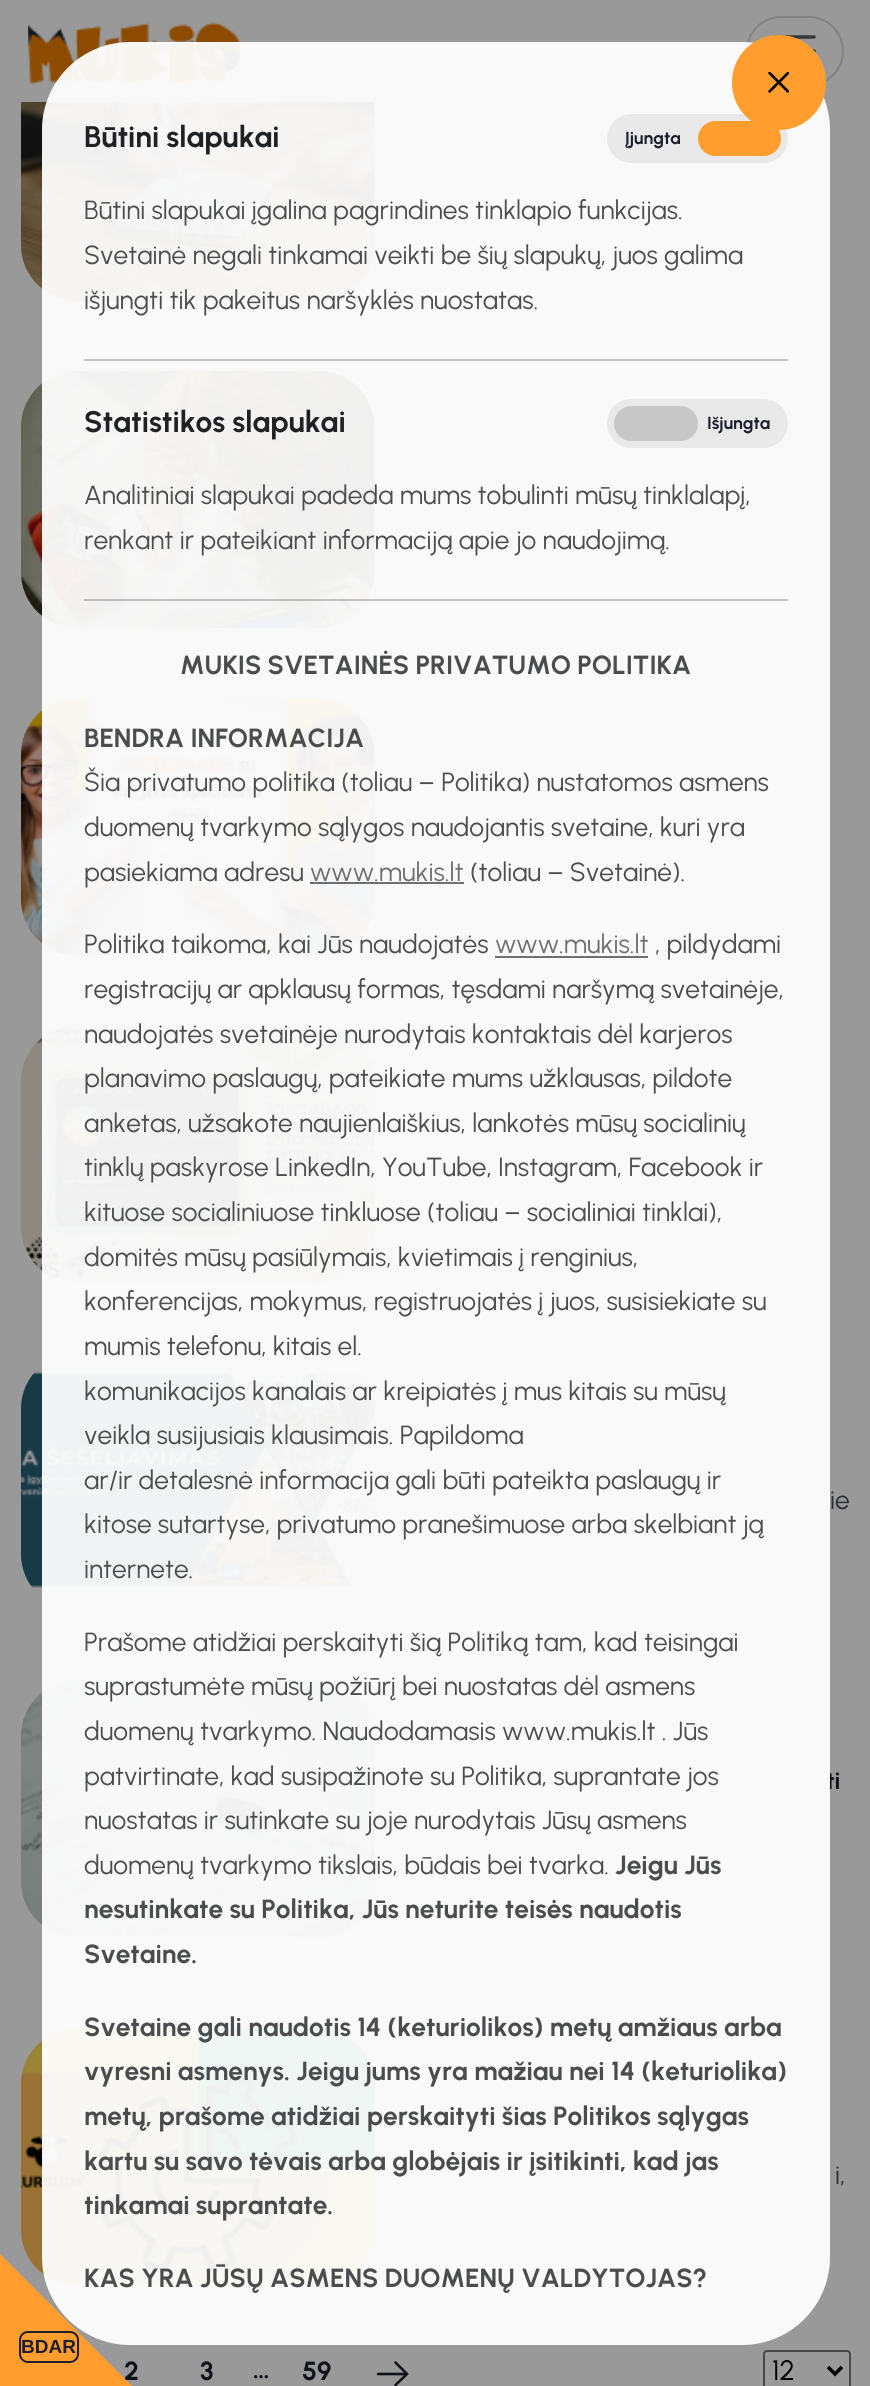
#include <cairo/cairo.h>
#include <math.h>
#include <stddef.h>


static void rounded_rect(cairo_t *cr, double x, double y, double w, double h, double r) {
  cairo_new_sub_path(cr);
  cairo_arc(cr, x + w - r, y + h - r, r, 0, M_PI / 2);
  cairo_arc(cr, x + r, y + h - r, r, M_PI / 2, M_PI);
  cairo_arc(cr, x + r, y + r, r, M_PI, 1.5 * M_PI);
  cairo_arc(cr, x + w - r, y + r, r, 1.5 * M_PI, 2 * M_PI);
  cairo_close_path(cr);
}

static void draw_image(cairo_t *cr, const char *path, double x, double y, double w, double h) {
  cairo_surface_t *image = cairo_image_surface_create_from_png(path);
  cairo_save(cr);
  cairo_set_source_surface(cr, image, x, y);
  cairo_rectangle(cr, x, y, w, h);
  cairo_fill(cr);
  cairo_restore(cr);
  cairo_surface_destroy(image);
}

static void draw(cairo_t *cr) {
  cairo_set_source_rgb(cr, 153 / 255.0, 153 / 255.0, 153 / 255.0);
  cairo_paint(cr);
  cairo_set_source_rgb(cr, 152 / 255.0, 147 / 255.0, 141 / 255.0);
  rounded_rect(cr, 21, 44, 354, 257, 56);
  cairo_fill(cr);
  cairo_set_source_rgb(cr, 153 / 255.0, 153 / 255.0, 153 / 255.0);
  cairo_rectangle(cr, 21, 44, 354, 58);
  cairo_fill(cr);
  draw_image(cr, "images/1.png", 28, 22, 214, 63);
  rounded_rect(cr, 747, 17, 96, 68, 34);
  cairo_set_source_rgb(cr, 130 / 255.0, 130 / 255.0, 130 / 255.0);
  cairo_stroke(cr);
  cairo_new_path(cr);
  cairo_move_to(cr, 775, 37);
  cairo_line_to(cr, 814, 37);
  cairo_move_to(cr, 775, 51);
  cairo_line_to(cr, 814, 51);
  cairo_move_to(cr, 775, 65);
  cairo_line_to(cr, 814, 65);
  cairo_set_source_rgb(cr, 53 / 255.0, 55 / 255.0, 57 / 255.0);
  cairo_set_line_width(cr, 3.5);
  cairo_set_line_cap(cr, CAIRO_LINE_CAP_ROUND);
  cairo_stroke(cr);
  draw_image(cr, "images/3.png", 21, 102, 354, 199);
  cairo_set_source_rgb(cr, 152 / 255.0, 147 / 255.0, 141 / 255.0);
  rounded_rect(cr, 21, 371, 354, 257, 56);
  cairo_fill(cr);
  draw_image(cr, "images/4.png", 21, 371, 354, 258);
  rounded_rect(cr, 21, 698, 354, 258, 56);
  cairo_fill(cr);
  draw_image(cr, "images/5.png", 21, 698, 354, 258);
  rounded_rect(cr, 21, 1026, 354, 257, 56);
  cairo_fill(cr);
  draw_image(cr, "images/6.png", 21, 1025, 354, 258);
  rounded_rect(cr, 21, 1353, 354, 257, 56);
  cairo_fill(cr);
  draw_image(cr, "images/7.png", 21, 1353, 354, 257);
  rounded_rect(cr, 21, 1680, 354, 257, 56);
  cairo_fill(cr);
  draw_image(cr, "images/8.png", 21, 1680, 354, 258);
  rounded_rect(cr, 21, 2028, 354, 258, 56);
  cairo_fill(cr);
  draw_image(cr, "images/9.png", 21, 2028, 354, 258);
  cairo_new_path(cr);
  cairo_move_to(cr, 395.5, 2362.5);
  cairo_line_to(cr, 407, 2374);
  cairo_line_to(cr, 395.5, 2385);
  cairo_move_to(cr, 378, 2374);
  cairo_line_to(cr, 406, 2374);
  cairo_set_source_rgb(cr, 17 / 255.0, 19 / 255.0, 28 / 255.0);
  cairo_set_line_width(cr, 2.6);
  cairo_stroke(cr);
  rounded_rect(cr, 764, 2351, 86, 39, 3);
  cairo_set_source_rgb(cr, 71 / 255.0, 71 / 255.0, 71 / 255.0);
  cairo_set_line_width(cr, 2);
  cairo_set_line_cap(cr, CAIRO_LINE_CAP_BUTT);
  cairo_stroke(cr);
  cairo_new_path(cr);
  cairo_move_to(cr, 828, 2367);
  cairo_line_to(cr, 835, 2374);
  cairo_line_to(cr, 842, 2367);
  cairo_set_source_rgb(cr, 0, 0, 0);
  cairo_set_line_width(cr, 3.5);
  cairo_stroke(cr);
  cairo_select_font_face(cr, "Urbanist", CAIRO_FONT_SLANT_NORMAL, CAIRO_FONT_WEIGHT_NORMAL);
  cairo_set_font_size(cr, 26.25);
  cairo_set_source_rgb(cr, 44 / 255.0, 46 / 255.0, 53 / 255.0);
  cairo_move_to(cr, 830, 1509);
  cairo_show_text(cr, "ie");
  cairo_select_font_face(cr, "Urbanist", CAIRO_FONT_SLANT_NORMAL, CAIRO_FONT_WEIGHT_BOLD);
  cairo_set_font_size(cr, 24);
  cairo_set_source_rgb(cr, 17 / 255.0, 19 / 255.0, 28 / 255.0);
  cairo_move_to(cr, 826, 1789);
  cairo_show_text(cr, "ti");
  cairo_set_source_rgba(cr, 1, 1, 1, 0.94);
  rounded_rect(cr, 42, 42, 788, 2303, 88);
  cairo_fill(cr);
  cairo_set_source_rgb(cr, 233 / 255.0, 233 / 255.0, 233 / 255.0);
  rounded_rect(cr, 610.5, 117.5, 174, 42, 21);
  cairo_fill_preserve(cr);
  cairo_set_line_width(cr, 7);
  cairo_stroke(cr);
  cairo_set_source_rgb(cr, 1, 158 / 255.0, 47 / 255.0);
  rounded_rect(cr, 698, 121, 83, 35, 17.5);
  cairo_fill(cr);
  rounded_rect(cr, 732, 35, 94, 95, 47);
  cairo_fill(cr);
  draw_image(cr, "images/2.png", 768, 72, 21, 21);
  cairo_set_source_rgb(cr, 233 / 255.0, 233 / 255.0, 233 / 255.0);
  rounded_rect(cr, 610.5, 402.5, 174, 42, 21);
  cairo_fill_preserve(cr);
  cairo_stroke(cr);
  cairo_set_source_rgb(cr, 199 / 255.0, 199 / 255.0, 199 / 255.0);
  rounded_rect(cr, 614, 406, 84, 35, 17.5);
  cairo_fill(cr);
  cairo_set_font_size(cr, 26.25);
  cairo_set_source_rgb(cr, 75 / 255.0, 76 / 255.0, 78 / 255.0);
  cairo_move_to(cr, 84, 2287);
  cairo_show_text(cr, "KAS YRA JŪSŲ ASMENS DUOMENŲ VALDYTOJAS?");
  cairo_move_to(cr, 84, 2214);
  cairo_show_text(cr, "tinkamai suprantate.");
  cairo_move_to(cr, 84, 2170);
  cairo_show_text(cr, "kartu su savo tėvais arba globėjais ir įsitikinti, kad jas");
  cairo_move_to(cr, 84, 2125);
  cairo_show_text(cr, "metų, prašome atidžiai perskaityti šias Politikos sąlygas");
  cairo_move_to(cr, 84, 2080);
  cairo_show_text(cr, "vyresni asmenys. Jeigu jums yra mažiau nei 14 (keturiolika)");
  cairo_move_to(cr, 84, 2036);
  cairo_show_text(cr, "Svetaine gali naudotis 14 (keturiolikos) metų amžiaus arba");
  cairo_move_to(cr, 84, 1963);
  cairo_show_text(cr, "Svetaine.");
  cairo_move_to(cr, 84, 1918);
  cairo_show_text(cr, "nesutinkate su Politika, Jūs neturite teisės naudotis");
  cairo_move_to(cr, 615, 1874);
  cairo_show_text(cr, "Jeigu Jūs");
  cairo_select_font_face(cr, "Urbanist", CAIRO_FONT_SLANT_NORMAL, CAIRO_FONT_WEIGHT_NORMAL);
  cairo_move_to(cr, 84, 1874);
  cairo_show_text(cr, "duomenų tvarkymo tikslais, būdais bei tvarka.");
  cairo_move_to(cr, 84, 1829);
  cairo_show_text(cr, "nuostatas ir sutinkate su joje nurodytais Jūsų asmens");
  cairo_move_to(cr, 84, 1785);
  cairo_show_text(cr, "patvirtinate, kad susipažinote su Politika, suprantate jos");
  cairo_move_to(cr, 84, 1740);
  cairo_show_text(cr, "duomenų tvarkymo. Naudodamasis www.mukis.lt . Jūs");
  cairo_move_to(cr, 84, 1695);
  cairo_show_text(cr, "suprastumėte mūsų požiūrį bei nuostatas dėl asmens");
  cairo_move_to(cr, 84, 1651);
  cairo_show_text(cr, "Prašome atidžiai perskaityti šią Politiką tam, kad teisingai");
  cairo_set_source_rgb(cr, 110 / 255.0, 110 / 255.0, 112 / 255.0);
  cairo_move_to(cr, 495, 953);
  cairo_show_text(cr, "www.mukis.lt");
  cairo_set_source_rgba(cr, 32 / 255.0, 33 / 255.0, 36 / 255.0, 0.64);
  cairo_rectangle(cr, 495, 956, 153, 2);
  cairo_fill(cr);
  cairo_set_source_rgb(cr, 75 / 255.0, 76 / 255.0, 78 / 255.0);
  cairo_move_to(cr, 84, 1578);
  cairo_show_text(cr, "internete.");
  cairo_move_to(cr, 84, 1533);
  cairo_show_text(cr, "kitose sutartyse, privatumo pranešimuose arba skelbiant ją");
  cairo_move_to(cr, 84, 1489);
  cairo_show_text(cr, "ar/ir detalesnė informacija gali būti pateikta paslaugų ir");
  cairo_move_to(cr, 84, 1444);
  cairo_show_text(cr, "veikla susijusiais klausimais. Papildoma");
  cairo_move_to(cr, 84, 1400);
  cairo_show_text(cr, "komunikacijos kanalais ar kreipiatės į mus kitais su mūsų");
  cairo_move_to(cr, 84, 1355);
  cairo_show_text(cr, "mumis telefonu, kitais el.");
  cairo_move_to(cr, 84, 1310);
  cairo_show_text(cr, "konferencijas, mokymus, registruojatės į juos, susisiekiate su");
  cairo_move_to(cr, 84, 1266);
  cairo_show_text(cr, "domitės mūsų pasiūlymais, kvietimais į renginius,");
  cairo_move_to(cr, 84, 1221);
  cairo_show_text(cr, "kituose socialiniuose tinkluose (toliau – socialiniai tinklai),");
  cairo_move_to(cr, 84, 1176);
  cairo_show_text(cr, "tinklų paskyrose LinkedIn, YouTube, Instagram, Facebook ir");
  cairo_move_to(cr, 84, 1132);
  cairo_show_text(cr, "anketas, užsakote naujienlaiškius, lankotės mūsų socialinių");
  cairo_move_to(cr, 84, 1087);
  cairo_show_text(cr, "planavimo paslaugų, pateikiate mums užklausas, pildote");
  cairo_move_to(cr, 84, 1043);
  cairo_show_text(cr, "naudojatės svetainėje nurodytais kontaktais dėl karjeros");
  cairo_move_to(cr, 84, 998);
  cairo_show_text(cr, "registracijų ar apklausų formas, tęsdami naršymą svetainėje,");
  cairo_move_to(cr, 655, 953);
  cairo_show_text(cr, ", pildydami");
  cairo_move_to(cr, 84, 953);
  cairo_show_text(cr, "Politika taikoma, kai Jūs naudojatės");
  cairo_set_source_rgb(cr, 110 / 255.0, 110 / 255.0, 112 / 255.0);
  cairo_move_to(cr, 310, 881);
  cairo_show_text(cr, "www.mukis.lt");
  cairo_set_source_rgba(cr, 32 / 255.0, 33 / 255.0, 36 / 255.0, 0.64);
  cairo_rectangle(cr, 310, 882, 154, 2);
  cairo_fill(cr);
  cairo_set_source_rgb(cr, 75 / 255.0, 76 / 255.0, 78 / 255.0);
  cairo_move_to(cr, 470, 881);
  cairo_show_text(cr, "(toliau – Svetainė).");
  cairo_move_to(cr, 84, 881);
  cairo_show_text(cr, "pasiekiama adresu");
  cairo_move_to(cr, 84, 836);
  cairo_show_text(cr, "duomenų tvarkymo sąlygos naudojantis svetaine, kuri yra");
  cairo_move_to(cr, 84, 791);
  cairo_show_text(cr, "Šia privatumo politika (toliau – Politika) nustatomos asmens");
  cairo_select_font_face(cr, "Urbanist", CAIRO_FONT_SLANT_NORMAL, CAIRO_FONT_WEIGHT_BOLD);
  cairo_move_to(cr, 84, 747);
  cairo_show_text(cr, "BENDRA INFORMACIJA");
  cairo_move_to(cr, 180, 674);
  cairo_show_text(cr, "MUKIS SVETAINĖS PRIVATUMO POLITIKA");
  cairo_set_source_rgba(cr, 29 / 255.0, 31 / 255.0, 47 / 255.0, 0.25);
  cairo_rectangle(cr, 84, 599, 704, 2);
  cairo_fill(cr);
  cairo_select_font_face(cr, "Urbanist", CAIRO_FONT_SLANT_NORMAL, CAIRO_FONT_WEIGHT_NORMAL);
  cairo_set_source_rgb(cr, 75 / 255.0, 76 / 255.0, 78 / 255.0);
  cairo_move_to(cr, 84, 549);
  cairo_show_text(cr, "renkant ir pateikiant informaciją apie jo naudojimą.");
  cairo_move_to(cr, 84, 504);
  cairo_show_text(cr, "Analitiniai slapukai padeda mums tobulinti mūsų tinklalapį,");
  cairo_select_font_face(cr, "Urbanist", CAIRO_FONT_SLANT_NORMAL, CAIRO_FONT_WEIGHT_BOLD);
  cairo_set_font_size(cr, 17.5);
  cairo_set_source_rgb(cr, 29 / 255.0, 31 / 255.0, 47 / 255.0);
  cairo_move_to(cr, 707, 429);
  cairo_show_text(cr, "Išjungta");
  cairo_set_font_size(cr, 29.75);
  cairo_set_source_rgb(cr, 32 / 255.0, 33 / 255.0, 36 / 255.0);
  cairo_move_to(cr, 84, 432);
  cairo_show_text(cr, "Statistikos slapukai");
  cairo_set_source_rgb(cr, 194 / 255.0, 194 / 255.0, 198 / 255.0);
  cairo_rectangle(cr, 84, 359, 704, 2);
  cairo_fill(cr);
  cairo_select_font_face(cr, "Urbanist", CAIRO_FONT_SLANT_NORMAL, CAIRO_FONT_WEIGHT_NORMAL);
  cairo_set_font_size(cr, 26.25);
  cairo_set_source_rgb(cr, 75 / 255.0, 76 / 255.0, 78 / 255.0);
  cairo_move_to(cr, 84, 309);
  cairo_show_text(cr, "išjungti tik pakeitus naršyklės nuostatas.");
  cairo_move_to(cr, 84, 264);
  cairo_show_text(cr, "Svetainė negali tinkamai veikti be šių slapukų, juos galima");
  cairo_move_to(cr, 84, 219);
  cairo_show_text(cr, "Būtini slapukai įgalina pagrindines tinklapio funkcijas.");
  cairo_select_font_face(cr, "Urbanist", CAIRO_FONT_SLANT_NORMAL, CAIRO_FONT_WEIGHT_BOLD);
  cairo_set_font_size(cr, 17.5);
  cairo_set_source_rgb(cr, 29 / 255.0, 31 / 255.0, 47 / 255.0);
  cairo_move_to(cr, 625, 144);
  cairo_show_text(cr, "Įjungta");
  cairo_set_font_size(cr, 29.75);
  cairo_set_source_rgb(cr, 32 / 255.0, 33 / 255.0, 36 / 255.0);
  cairo_move_to(cr, 84, 147);
  cairo_show_text(cr, "Būtini slapukai");
  cairo_select_font_face(cr, "Urbanist", CAIRO_FONT_SLANT_NORMAL, CAIRO_FONT_WEIGHT_NORMAL);
  cairo_set_font_size(cr, 26.25);
  cairo_set_source_rgb(cr, 44 / 255.0, 46 / 255.0, 53 / 255.0);
  cairo_move_to(cr, 835, 2184);
  cairo_show_text(cr, "i,");
  cairo_select_font_face(cr, "Urbanist", CAIRO_FONT_SLANT_NORMAL, CAIRO_FONT_WEIGHT_BOLD);
  cairo_set_source_rgb(cr, 17 / 255.0, 19 / 255.0, 28 / 255.0);
  cairo_move_to(cr, 124, 2380);
  cairo_show_text(cr, "2");
  cairo_set_source_rgb(cr, 1, 158 / 255.0, 47 / 255.0);
  cairo_new_path(cr);
  cairo_move_to(cr, -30, 2224);
  cairo_line_to(cr, 137, 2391);
  cairo_line_to(cr, 32, 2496);
  cairo_line_to(cr, -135, 2329);
  cairo_close_path(cr);
  cairo_fill(cr);
  rounded_rect(cr, 20, 2332, 58, 30, 8);
  cairo_set_source_rgb(cr, 29 / 255.0, 31 / 255.0, 47 / 255.0);
  cairo_set_line_width(cr, 2);
  cairo_stroke(cr);
  cairo_select_font_face(cr, "Liberation Sans", CAIRO_FONT_SLANT_NORMAL, CAIRO_FONT_WEIGHT_BOLD);
  cairo_set_font_size(cr, 19);
  cairo_move_to(cr, 21, 2353);
  cairo_show_text(cr, "BDAR");
  cairo_select_font_face(cr, "Urbanist", CAIRO_FONT_SLANT_NORMAL, CAIRO_FONT_WEIGHT_BOLD);
  cairo_set_font_size(cr, 26.25);
  cairo_set_source_rgb(cr, 17 / 255.0, 19 / 255.0, 28 / 255.0);
  cairo_move_to(cr, 200, 2380);
  cairo_show_text(cr, "3");
  cairo_move_to(cr, 253, 2378);
  cairo_show_text(cr, "…");
  cairo_move_to(cr, 302, 2380);
  cairo_show_text(cr, "59");
  cairo_select_font_face(cr, "Urbanist", CAIRO_FONT_SLANT_NORMAL, CAIRO_FONT_WEIGHT_NORMAL);
  cairo_set_font_size(cr, 28);
  cairo_set_source_rgb(cr, 0, 0, 0);
  cairo_move_to(cr, 772, 2380);
  cairo_show_text(cr, "12");
}

int main(void) {
  cairo_surface_t *surface = cairo_image_surface_create(CAIRO_FORMAT_RGB24, 870, 2386);
  cairo_t *cr = cairo_create(surface);
  cairo_font_options_t *options = cairo_font_options_create();
  cairo_font_options_set_hint_metrics(options, CAIRO_HINT_METRICS_OFF);
  cairo_font_options_set_hint_style(options, CAIRO_HINT_STYLE_NONE);
  cairo_set_font_options(cr, options);
  cairo_set_miter_limit(cr, 4);
  draw(cr);
  cairo_surface_write_to_png(surface, "out.png");
  cairo_font_options_destroy(options);
  cairo_destroy(cr);
  cairo_surface_destroy(surface);
  return 0;
}
